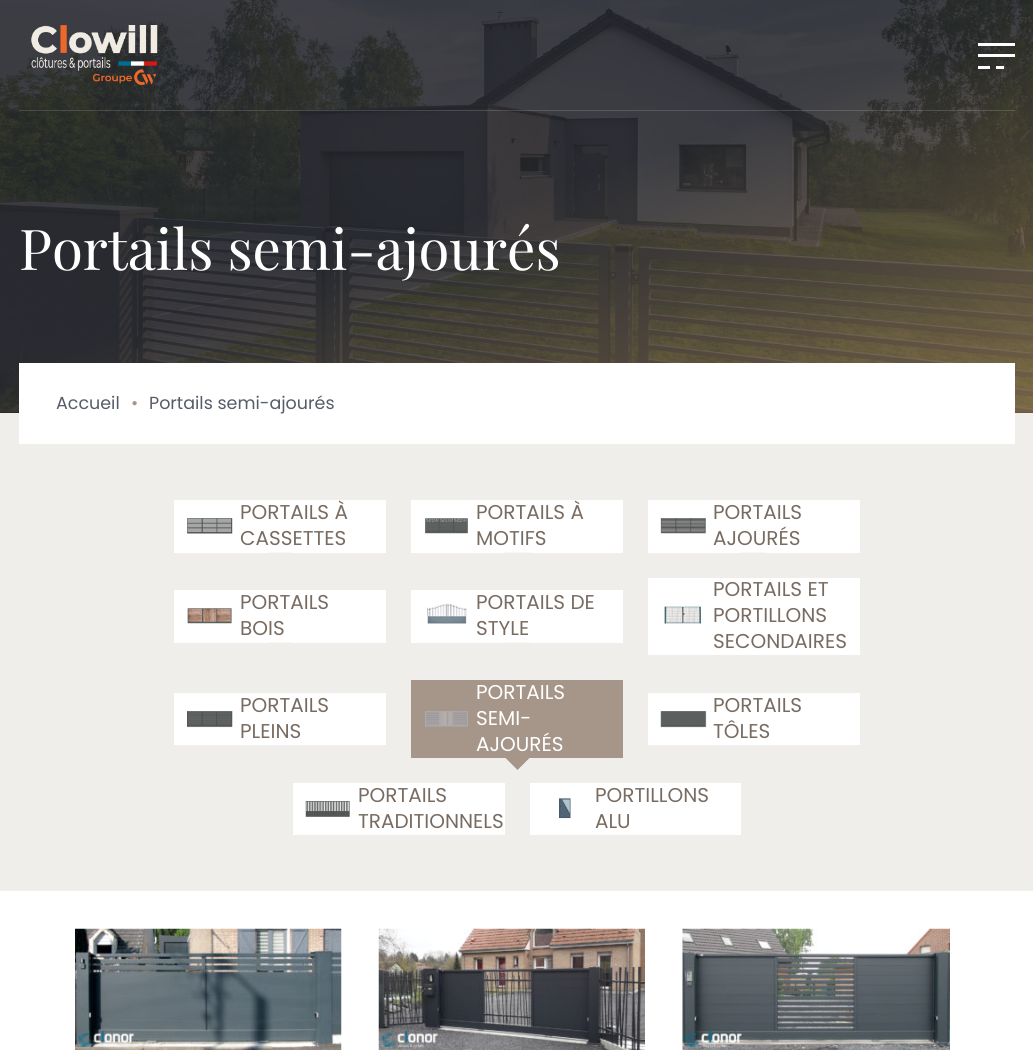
#include <cairo/cairo.h>
#include <math.h>
#include <stddef.h>


static void draw_image(cairo_t *cr, const char *path, double x, double y, double w, double h) {
  cairo_surface_t *image = cairo_image_surface_create_from_png(path);
  cairo_save(cr);
  cairo_set_source_surface(cr, image, x, y);
  cairo_rectangle(cr, x, y, w, h);
  cairo_fill(cr);
  cairo_restore(cr);
  cairo_surface_destroy(image);
}

static void draw(cairo_t *cr) {
  cairo_pattern_t *gradient;
  cairo_set_source_rgb(cr, 1, 1, 1);
  cairo_paint(cr);
  cairo_set_source_rgb(cr, 0, 0, 0);
  cairo_rectangle(cr, 0, 412, 1033, 1);
  cairo_fill(cr);
  draw_image(cr, "images/2.png", 0, 0, 1033, 413);
  gradient = cairo_pattern_create_linear(399, -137, 635, 550);
  cairo_pattern_add_color_stop_rgba(gradient, 0, 38 / 255.0, 40 / 255.0, 43 / 255.0, 0.65);
  cairo_pattern_add_color_stop_rgba(gradient, 0.49, 38 / 255.0, 40 / 255.0, 43 / 255.0, 0.65);
  cairo_pattern_add_color_stop_rgba(gradient, 1, 159 / 255.0, 128 / 255.0, 84 / 255.0, 0.65);
  cairo_set_source(cr, gradient);
  cairo_pattern_destroy(gradient);
  cairo_rectangle(cr, 0, 0, 1033, 413);
  cairo_fill(cr);
  cairo_set_source_rgba(cr, 1, 1, 1, 0.15);
  cairo_rectangle(cr, 19, 110, 996, 1);
  cairo_fill(cr);
  draw_image(cr, "images/1.png", 31, 25, 127, 60);
  cairo_set_source_rgb(cr, 1, 1, 1);
  cairo_rectangle(cr, 978, 43, 37, 3);
  cairo_fill(cr);
  cairo_rectangle(cr, 978, 54, 37, 3);
  cairo_fill(cr);
  cairo_rectangle(cr, 978, 66, 12, 3);
  cairo_fill(cr);
  cairo_rectangle(cr, 996, 66, 8, 3);
  cairo_fill(cr);
  cairo_set_source_rgb(cr, 240 / 255.0, 238 / 255.0, 235 / 255.0);
  cairo_rectangle(cr, 0, 413, 1033, 478);
  cairo_fill(cr);
  cairo_set_source_rgb(cr, 1, 1, 1);
  cairo_rectangle(cr, 19, 363, 996, 81);
  cairo_fill(cr);
  cairo_rectangle(cr, 174, 500, 212, 53);
  cairo_fill(cr);
  draw_image(cr, "images/3.png", 187, 518, 46, 16);
  cairo_set_source_rgb(cr, 240 / 255.0, 238 / 255.0, 235 / 255.0);
  cairo_new_path(cr);
  cairo_move_to(cr, 267.5, 552.5);
  cairo_line_to(cr, 292.5, 552.5);
  cairo_line_to(cr, 280, 565);
  cairo_close_path(cr);
  cairo_fill(cr);
  cairo_set_source_rgb(cr, 1, 1, 1);
  cairo_rectangle(cr, 411, 500, 212, 53);
  cairo_fill(cr);
  draw_image(cr, "images/4.png", 425, 518, 43, 16);
  cairo_set_source_rgb(cr, 240 / 255.0, 238 / 255.0, 235 / 255.0);
  cairo_new_path(cr);
  cairo_move_to(cr, 505, 552.5);
  cairo_line_to(cr, 530, 552.5);
  cairo_line_to(cr, 517.5, 565);
  cairo_close_path(cr);
  cairo_fill(cr);
  cairo_set_source_rgb(cr, 1, 1, 1);
  cairo_rectangle(cr, 648, 500, 212, 53);
  cairo_fill(cr);
  draw_image(cr, "images/5.png", 660, 518, 46, 16);
  cairo_set_source_rgb(cr, 240 / 255.0, 238 / 255.0, 235 / 255.0);
  cairo_new_path(cr);
  cairo_move_to(cr, 741, 552.5);
  cairo_line_to(cr, 766, 552.5);
  cairo_line_to(cr, 754, 565);
  cairo_close_path(cr);
  cairo_fill(cr);
  cairo_set_source_rgb(cr, 1, 1, 1);
  cairo_rectangle(cr, 174, 590, 212, 53);
  cairo_fill(cr);
  draw_image(cr, "images/6.png", 187, 608, 45, 16);
  cairo_set_source_rgb(cr, 240 / 255.0, 238 / 255.0, 235 / 255.0);
  cairo_new_path(cr);
  cairo_move_to(cr, 267.5, 642.5);
  cairo_line_to(cr, 292.5, 642.5);
  cairo_line_to(cr, 280, 655);
  cairo_close_path(cr);
  cairo_fill(cr);
  cairo_set_source_rgb(cr, 1, 1, 1);
  cairo_rectangle(cr, 411, 590, 212, 53);
  cairo_fill(cr);
  draw_image(cr, "images/7.png", 427, 603, 40, 21);
  cairo_set_source_rgb(cr, 240 / 255.0, 238 / 255.0, 235 / 255.0);
  cairo_new_path(cr);
  cairo_move_to(cr, 505, 642.5);
  cairo_line_to(cr, 530, 642.5);
  cairo_line_to(cr, 517.5, 655);
  cairo_close_path(cr);
  cairo_fill(cr);
  cairo_set_source_rgb(cr, 1, 1, 1);
  cairo_rectangle(cr, 648, 578, 212, 77);
  cairo_fill(cr);
  draw_image(cr, "images/8.png", 664, 606, 37, 18);
  cairo_rectangle(cr, 174, 693, 212, 52);
  cairo_fill(cr);
  draw_image(cr, "images/9.png", 187, 711, 46, 17);
  cairo_set_source_rgb(cr, 166 / 255.0, 150 / 255.0, 137 / 255.0);
  cairo_rectangle(cr, 411, 680, 212, 78);
  cairo_fill(cr);
  draw_image(cr, "images/10.png", 425, 711, 43, 16);
  cairo_new_path(cr);
  cairo_move_to(cr, 505, 757.5);
  cairo_line_to(cr, 530, 757.5);
  cairo_line_to(cr, 517.5, 770);
  cairo_close_path(cr);
  cairo_fill(cr);
  cairo_set_source_rgb(cr, 1, 1, 1);
  cairo_rectangle(cr, 648, 693, 212, 52);
  cairo_fill(cr);
  draw_image(cr, "images/11.png", 660, 711, 47, 17);
  cairo_rectangle(cr, 293, 783, 212, 52);
  cairo_fill(cr);
  draw_image(cr, "images/12.png", 305, 801, 45, 16);
  cairo_rectangle(cr, 530, 783, 211, 52);
  cairo_fill(cr);
  draw_image(cr, "images/13.png", 559, 798, 12, 21);
  draw_image(cr, "images/14.png", 75, 928, 267, 122);
  draw_image(cr, "images/15.png", 378, 928, 267, 122);
  draw_image(cr, "images/16.png", 682, 928, 268, 122);
  cairo_select_font_face(cr, "Playfair Display", CAIRO_FONT_SLANT_NORMAL, CAIRO_FONT_WEIGHT_NORMAL);
  cairo_set_font_size(cr, 56.25);
  cairo_move_to(cr, 19, 270);
  cairo_show_text(cr, "Portails semi-ajourés");
  cairo_select_font_face(cr, "Poppins", CAIRO_FONT_SLANT_NORMAL, CAIRO_FONT_WEIGHT_NORMAL);
  cairo_set_font_size(cr, 17.5);
  cairo_set_source_rgb(cr, 86 / 255.0, 92 / 255.0, 104 / 255.0);
  cairo_move_to(cr, 56, 409);
  cairo_show_text(cr, "Accueil");
  cairo_set_source_rgb(cr, 166 / 255.0, 150 / 255.0, 137 / 255.0);
  cairo_move_to(cr, 131, 409);
  cairo_show_text(cr, "•");
  cairo_set_source_rgb(cr, 86 / 255.0, 92 / 255.0, 104 / 255.0);
  cairo_move_to(cr, 149, 409);
  cairo_show_text(cr, "Portails semi-ajourés");
  cairo_set_font_size(cr, 20);
  cairo_set_source_rgb(cr, 120 / 255.0, 108 / 255.0, 98 / 255.0);
  cairo_move_to(cr, 240, 519);
  cairo_show_text(cr, "PORTAILS À");
  cairo_move_to(cr, 240, 545);
  cairo_show_text(cr, "CASSETTES");
  cairo_move_to(cr, 476, 519);
  cairo_show_text(cr, "PORTAILS À");
  cairo_move_to(cr, 476, 545);
  cairo_show_text(cr, "MOTIFS");
  cairo_move_to(cr, 713, 519);
  cairo_show_text(cr, "PORTAILS");
  cairo_move_to(cr, 713, 545);
  cairo_show_text(cr, "AJOURÉS");
  cairo_move_to(cr, 240, 609);
  cairo_show_text(cr, "PORTAILS");
  cairo_move_to(cr, 240, 635);
  cairo_show_text(cr, "BOIS");
  cairo_move_to(cr, 476, 609);
  cairo_show_text(cr, "PORTAILS DE");
  cairo_move_to(cr, 476, 635);
  cairo_show_text(cr, "STYLE");
  cairo_move_to(cr, 713, 596);
  cairo_show_text(cr, "PORTAILS ET");
  cairo_move_to(cr, 713, 622);
  cairo_show_text(cr, "PORTILLONS");
  cairo_move_to(cr, 713, 648);
  cairo_show_text(cr, "SECONDAIRES");
  cairo_move_to(cr, 240, 712);
  cairo_show_text(cr, "PORTAILS");
  cairo_move_to(cr, 240, 738);
  cairo_show_text(cr, "PLEINS");
  cairo_set_source_rgb(cr, 1, 1, 1);
  cairo_move_to(cr, 476, 699);
  cairo_show_text(cr, "PORTAILS");
  cairo_move_to(cr, 476, 725);
  cairo_show_text(cr, "SEMI-");
  cairo_move_to(cr, 476, 751);
  cairo_show_text(cr, "AJOURÉS");
  cairo_set_source_rgb(cr, 120 / 255.0, 108 / 255.0, 98 / 255.0);
  cairo_move_to(cr, 713, 712);
  cairo_show_text(cr, "PORTAILS");
  cairo_move_to(cr, 713, 738);
  cairo_show_text(cr, "TÔLES");
  cairo_move_to(cr, 358, 802);
  cairo_show_text(cr, "PORTAILS");
  cairo_move_to(cr, 358, 828);
  cairo_show_text(cr, "TRADITIONNELS");
  cairo_move_to(cr, 595, 802);
  cairo_show_text(cr, "PORTILLONS");
  cairo_move_to(cr, 595, 828);
  cairo_show_text(cr, "ALU");
}

int main(void) {
  cairo_surface_t *surface = cairo_image_surface_create(CAIRO_FORMAT_RGB24, 1033, 1050);
  cairo_t *cr = cairo_create(surface);
  cairo_font_options_t *options = cairo_font_options_create();
  cairo_font_options_set_hint_metrics(options, CAIRO_HINT_METRICS_OFF);
  cairo_font_options_set_hint_style(options, CAIRO_HINT_STYLE_NONE);
  cairo_set_font_options(cr, options);
  cairo_set_miter_limit(cr, 4);
  draw(cr);
  cairo_surface_write_to_png(surface, "out.png");
  cairo_font_options_destroy(options);
  cairo_destroy(cr);
  cairo_surface_destroy(surface);
  return 0;
}
